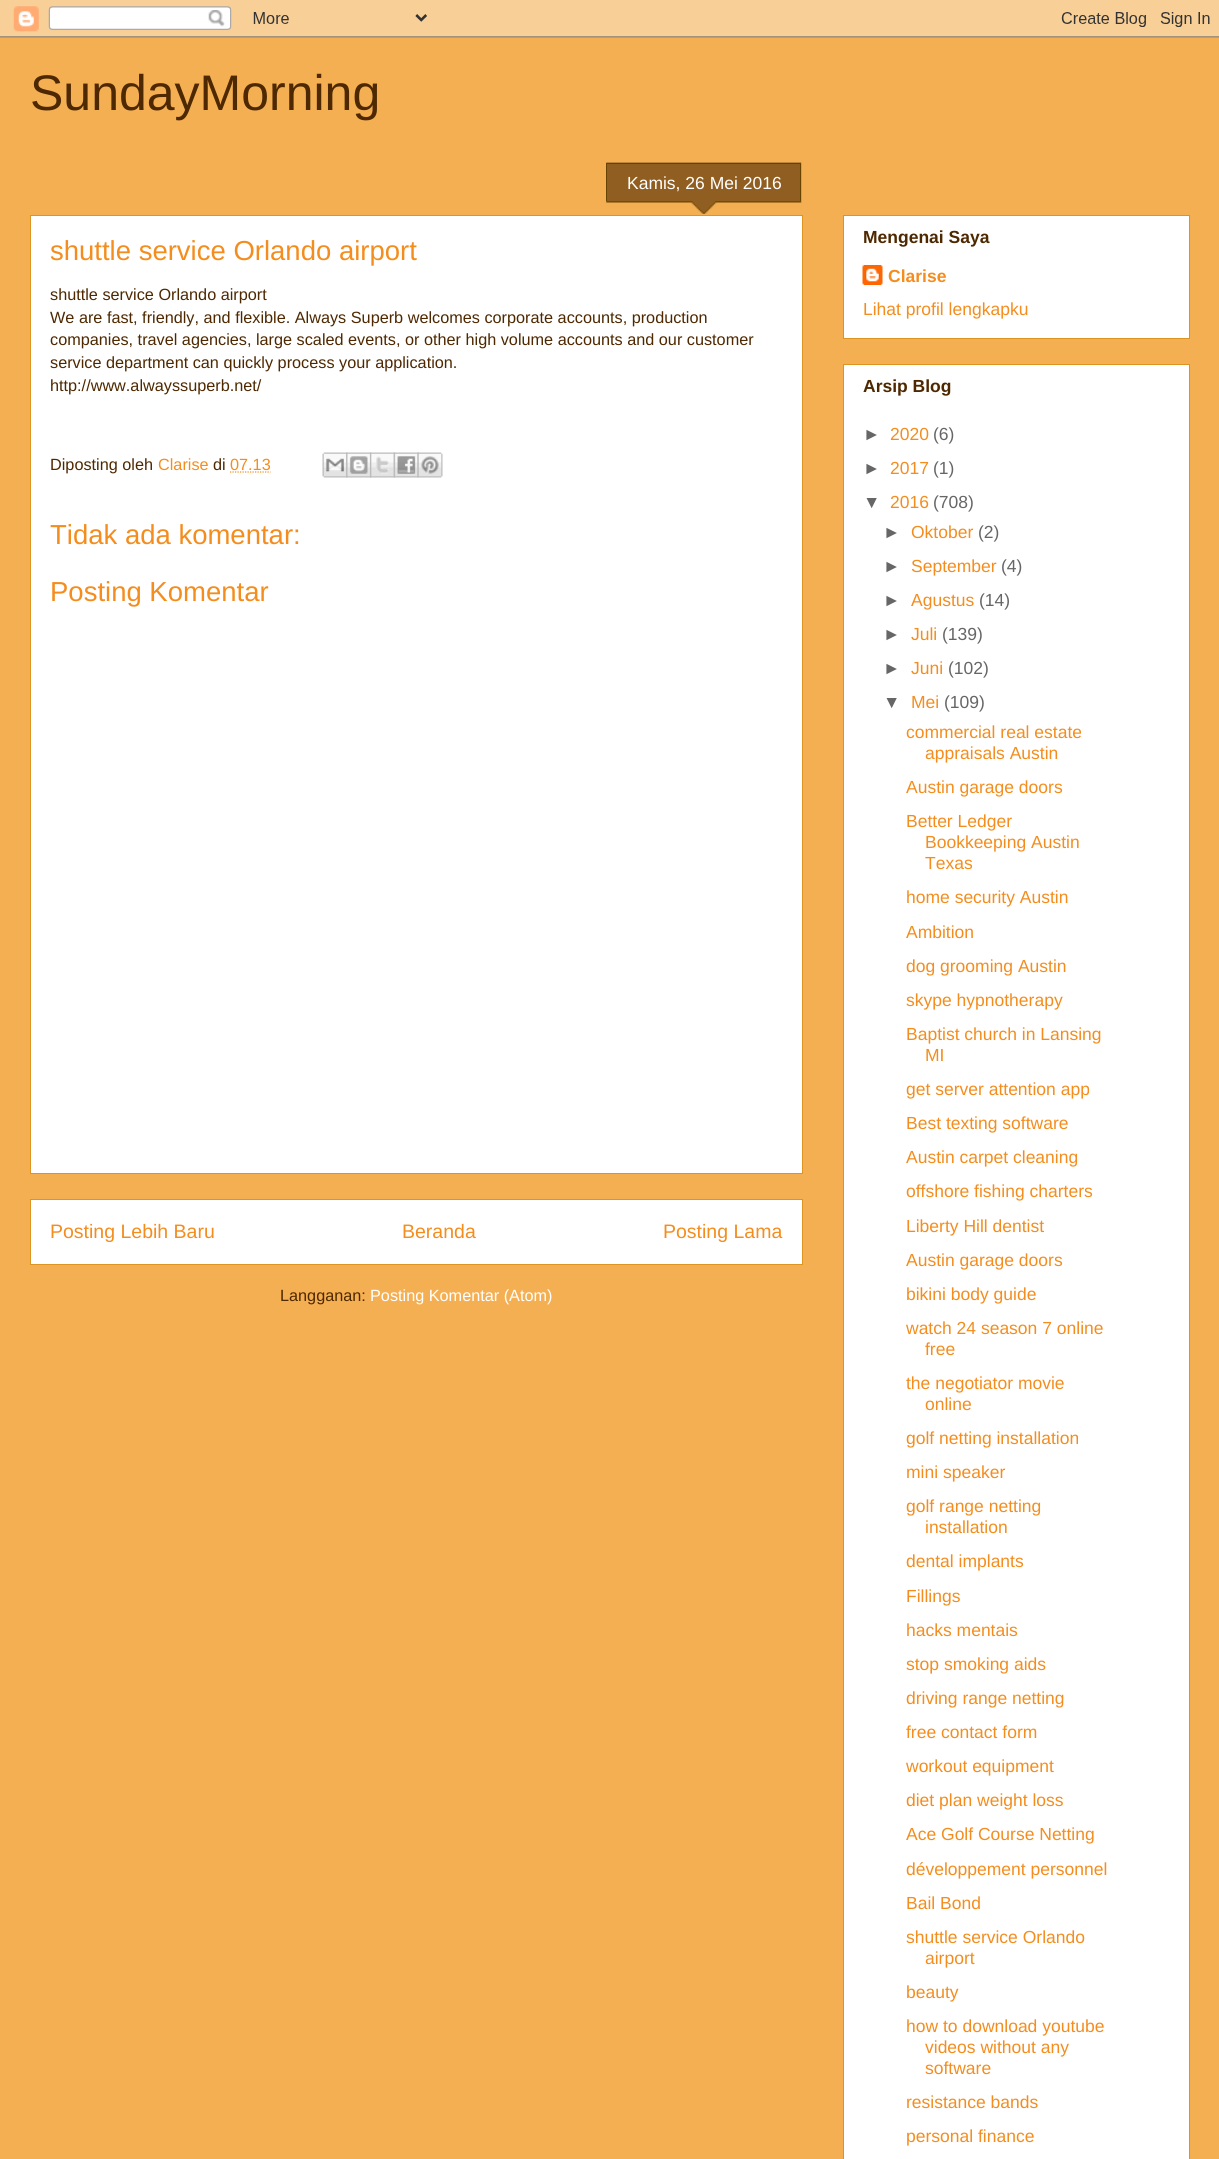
#include <cairo/cairo.h>
#include <math.h>
#include <stddef.h>


static void draw_image(cairo_t *cr, const char *path, double x, double y, double w, double h) {
  cairo_surface_t *image = cairo_image_surface_create_from_png(path);
  cairo_save(cr);
  cairo_set_source_surface(cr, image, x, y);
  cairo_rectangle(cr, x, y, w, h);
  cairo_fill(cr);
  cairo_restore(cr);
  cairo_surface_destroy(image);
}

static void draw(cairo_t *cr) {
  cairo_set_source_rgb(cr, 244 / 255.0, 175 / 255.0, 82 / 255.0);
  cairo_paint(cr);
  draw_image(cr, "images/1.png", 0, 0, 1219, 38);
  cairo_set_source_rgb(cr, 1, 1, 1);
  cairo_rectangle(cr, 30.5, 215.5, 772, 958);
  cairo_fill_preserve(cr);
  cairo_set_source_rgb(cr, 220 / 255.0, 149 / 255.0, 34 / 255.0);
  cairo_set_line_width(cr, 1);
  cairo_stroke(cr);
  draw_image(cr, "images/2.png", 606, 162, 196, 52);
  cairo_set_source_rgb(cr, 102 / 255.0, 68 / 255.0, 0);
  cairo_rectangle(cr, 606, 163, 195, 1);
  cairo_fill(cr);
  cairo_rectangle(cr, 800, 164, 1, 37);
  cairo_fill(cr);
  cairo_rectangle(cr, 606, 164, 1, 37);
  cairo_fill(cr);
  cairo_new_path(cr);
  cairo_move_to(cr, 230, 472);
  cairo_line_to(cr, 270.5, 472);
  cairo_set_source_rgb(cr, 244 / 255.0, 141 / 255.0, 29 / 255.0);
  cairo_set_line_width(cr, 1.2);
  cairo_set_dash(cr, (double[]){1.25, 1.25}, 2, 0);
  cairo_stroke(cr);
  draw_image(cr, "images/3.png", 322, 452, 26, 26);
  draw_image(cr, "images/4.png", 346, 452, 26, 26);
  draw_image(cr, "images/5.png", 370, 452, 25, 26);
  draw_image(cr, "images/6.png", 393, 452, 26, 26);
  draw_image(cr, "images/7.png", 417, 452, 26, 26);
  cairo_set_source_rgb(cr, 1, 1, 1);
  cairo_rectangle(cr, 30.5, 1199.5, 772, 65);
  cairo_fill_preserve(cr);
  cairo_set_source_rgb(cr, 220 / 255.0, 149 / 255.0, 34 / 255.0);
  cairo_set_line_width(cr, 1);
  cairo_set_dash(cr, NULL, 0, 0);
  cairo_stroke(cr);
  cairo_set_source_rgb(cr, 1, 1, 1);
  cairo_rectangle(cr, 843.5, 215.5, 346, 123);
  cairo_fill_preserve(cr);
  cairo_set_source_rgb(cr, 220 / 255.0, 149 / 255.0, 34 / 255.0);
  cairo_stroke(cr);
  draw_image(cr, "images/8.png", 862, 265, 21, 20);
  cairo_set_source_rgb(cr, 1, 1, 1);
  cairo_rectangle(cr, 843.5, 364.5, 346, 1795);
  cairo_fill_preserve(cr);
  cairo_set_source_rgb(cr, 220 / 255.0, 149 / 255.0, 34 / 255.0);
  cairo_stroke(cr);
  cairo_select_font_face(cr, "Liberation Sans", CAIRO_FONT_SLANT_NORMAL, CAIRO_FONT_WEIGHT_NORMAL);
  cairo_set_font_size(cr, 50);
  cairo_set_source_rgb(cr, 78 / 255.0, 40 / 255.0, 0);
  cairo_move_to(cr, 30, 110);
  cairo_show_text(cr, "SundayMorning");
  cairo_set_font_size(cr, 17.5);
  cairo_set_source_rgb(cr, 1, 1, 1);
  cairo_move_to(cr, 627, 189);
  cairo_show_text(cr, "Kamis, 26 Mei 2016");
  cairo_set_font_size(cr, 27.5);
  cairo_set_source_rgb(cr, 244 / 255.0, 141 / 255.0, 29 / 255.0);
  cairo_move_to(cr, 50, 260);
  cairo_show_text(cr, "shuttle service Orlando airport");
  cairo_set_font_size(cr, 16.25);
  cairo_set_source_rgb(cr, 78 / 255.0, 40 / 255.0, 0);
  cairo_move_to(cr, 50, 300);
  cairo_show_text(cr, "shuttle service Orlando airport");
  cairo_move_to(cr, 50, 323);
  cairo_show_text(cr, "We are fast, friendly, and flexible. Always Superb welcomes corporate accounts, production");
  cairo_move_to(cr, 50, 345);
  cairo_show_text(cr, "companies, travel agencies, large scaled events, or other high volume accounts and our customer");
  cairo_move_to(cr, 50, 368);
  cairo_show_text(cr, "service department can quickly process your application.");
  cairo_move_to(cr, 50, 391);
  cairo_show_text(cr, "http://www.alwayssuperb.net/");
  cairo_move_to(cr, 50, 470);
  cairo_show_text(cr, "Diposting oleh");
  cairo_set_source_rgb(cr, 244 / 255.0, 141 / 255.0, 29 / 255.0);
  cairo_move_to(cr, 158, 470);
  cairo_show_text(cr, "Clarise");
  cairo_set_source_rgb(cr, 78 / 255.0, 40 / 255.0, 0);
  cairo_move_to(cr, 213, 470);
  cairo_show_text(cr, "di");
  cairo_set_source_rgb(cr, 244 / 255.0, 141 / 255.0, 29 / 255.0);
  cairo_move_to(cr, 230, 470);
  cairo_show_text(cr, "07.13");
  cairo_set_font_size(cr, 27.5);
  cairo_move_to(cr, 50, 544);
  cairo_show_text(cr, "Tidak ada komentar:");
  cairo_move_to(cr, 50, 601);
  cairo_show_text(cr, "Posting Komentar");
  cairo_set_font_size(cr, 19.5);
  cairo_move_to(cr, 50, 1238);
  cairo_show_text(cr, "Posting Lebih Baru");
  cairo_move_to(cr, 402, 1238);
  cairo_show_text(cr, "Beranda");
  cairo_move_to(cr, 663, 1238);
  cairo_show_text(cr, "Posting Lama");
  cairo_set_font_size(cr, 16.25);
  cairo_set_source_rgb(cr, 78 / 255.0, 40 / 255.0, 0);
  cairo_move_to(cr, 280, 1301);
  cairo_show_text(cr, "Langganan:");
  cairo_set_source_rgb(cr, 1, 1, 1);
  cairo_move_to(cr, 370, 1301);
  cairo_show_text(cr, "Posting Komentar (Atom)");
  cairo_select_font_face(cr, "Liberation Sans", CAIRO_FONT_SLANT_NORMAL, CAIRO_FONT_WEIGHT_BOLD);
  cairo_set_font_size(cr, 17.5);
  cairo_set_source_rgb(cr, 78 / 255.0, 40 / 255.0, 0);
  cairo_move_to(cr, 863, 243);
  cairo_show_text(cr, "Mengenai Saya");
  cairo_set_source_rgb(cr, 244 / 255.0, 141 / 255.0, 29 / 255.0);
  cairo_move_to(cr, 888, 282);
  cairo_show_text(cr, "Clarise");
  cairo_select_font_face(cr, "Liberation Sans", CAIRO_FONT_SLANT_NORMAL, CAIRO_FONT_WEIGHT_NORMAL);
  cairo_move_to(cr, 863, 315);
  cairo_show_text(cr, "Lihat profil lengkapku");
  cairo_select_font_face(cr, "Liberation Sans", CAIRO_FONT_SLANT_NORMAL, CAIRO_FONT_WEIGHT_BOLD);
  cairo_set_source_rgb(cr, 78 / 255.0, 40 / 255.0, 0);
  cairo_move_to(cr, 863, 392);
  cairo_show_text(cr, "Arsip Blog");
  cairo_select_font_face(cr, "Liberation Sans", CAIRO_FONT_SLANT_NORMAL, CAIRO_FONT_WEIGHT_NORMAL);
  cairo_set_source_rgb(cr, 102 / 255.0, 102 / 255.0, 102 / 255.0);
  cairo_move_to(cr, 863, 440);
  cairo_show_text(cr, "►");
  cairo_set_source_rgb(cr, 244 / 255.0, 141 / 255.0, 29 / 255.0);
  cairo_move_to(cr, 890, 440);
  cairo_show_text(cr, "2020");
  cairo_set_source_rgb(cr, 102 / 255.0, 102 / 255.0, 102 / 255.0);
  cairo_move_to(cr, 933, 440);
  cairo_show_text(cr, "(6)");
  cairo_move_to(cr, 863, 474);
  cairo_show_text(cr, "►");
  cairo_set_source_rgb(cr, 244 / 255.0, 141 / 255.0, 29 / 255.0);
  cairo_move_to(cr, 890, 474);
  cairo_show_text(cr, "2017");
  cairo_set_source_rgb(cr, 102 / 255.0, 102 / 255.0, 102 / 255.0);
  cairo_move_to(cr, 933, 474);
  cairo_show_text(cr, "(1)");
  cairo_move_to(cr, 863, 508);
  cairo_show_text(cr, "▼");
  cairo_set_source_rgb(cr, 244 / 255.0, 141 / 255.0, 29 / 255.0);
  cairo_move_to(cr, 890, 508);
  cairo_show_text(cr, "2016");
  cairo_set_source_rgb(cr, 102 / 255.0, 102 / 255.0, 102 / 255.0);
  cairo_move_to(cr, 933, 508);
  cairo_show_text(cr, "(708)");
  cairo_move_to(cr, 883, 538);
  cairo_show_text(cr, "►");
  cairo_set_source_rgb(cr, 244 / 255.0, 141 / 255.0, 29 / 255.0);
  cairo_move_to(cr, 911, 538);
  cairo_show_text(cr, "Oktober");
  cairo_set_source_rgb(cr, 102 / 255.0, 102 / 255.0, 102 / 255.0);
  cairo_move_to(cr, 978, 538);
  cairo_show_text(cr, "(2)");
  cairo_move_to(cr, 883, 572);
  cairo_show_text(cr, "►");
  cairo_set_source_rgb(cr, 244 / 255.0, 141 / 255.0, 29 / 255.0);
  cairo_move_to(cr, 911, 572);
  cairo_show_text(cr, "September");
  cairo_set_source_rgb(cr, 102 / 255.0, 102 / 255.0, 102 / 255.0);
  cairo_move_to(cr, 1001, 572);
  cairo_show_text(cr, "(4)");
  cairo_move_to(cr, 883, 606);
  cairo_show_text(cr, "►");
  cairo_set_source_rgb(cr, 244 / 255.0, 141 / 255.0, 29 / 255.0);
  cairo_move_to(cr, 911, 606);
  cairo_show_text(cr, "Agustus");
  cairo_set_source_rgb(cr, 102 / 255.0, 102 / 255.0, 102 / 255.0);
  cairo_move_to(cr, 979, 606);
  cairo_show_text(cr, "(14)");
  cairo_move_to(cr, 883, 640);
  cairo_show_text(cr, "►");
  cairo_set_source_rgb(cr, 244 / 255.0, 141 / 255.0, 29 / 255.0);
  cairo_move_to(cr, 911, 640);
  cairo_show_text(cr, "Juli");
  cairo_set_source_rgb(cr, 102 / 255.0, 102 / 255.0, 102 / 255.0);
  cairo_move_to(cr, 942, 640);
  cairo_show_text(cr, "(139)");
  cairo_move_to(cr, 883, 674);
  cairo_show_text(cr, "►");
  cairo_set_source_rgb(cr, 244 / 255.0, 141 / 255.0, 29 / 255.0);
  cairo_move_to(cr, 911, 674);
  cairo_show_text(cr, "Juni");
  cairo_set_source_rgb(cr, 102 / 255.0, 102 / 255.0, 102 / 255.0);
  cairo_move_to(cr, 948, 674);
  cairo_show_text(cr, "(102)");
  cairo_move_to(cr, 883, 708);
  cairo_show_text(cr, "▼");
  cairo_set_source_rgb(cr, 244 / 255.0, 141 / 255.0, 29 / 255.0);
  cairo_move_to(cr, 911, 708);
  cairo_show_text(cr, "Mei");
  cairo_set_source_rgb(cr, 102 / 255.0, 102 / 255.0, 102 / 255.0);
  cairo_move_to(cr, 944, 708);
  cairo_show_text(cr, "(109)");
  cairo_set_source_rgb(cr, 244 / 255.0, 141 / 255.0, 29 / 255.0);
  cairo_move_to(cr, 906, 738);
  cairo_show_text(cr, "commercial real estate");
  cairo_move_to(cr, 925, 759);
  cairo_show_text(cr, "appraisals Austin");
  cairo_move_to(cr, 906, 793);
  cairo_show_text(cr, "Austin garage doors");
  cairo_move_to(cr, 906, 827);
  cairo_show_text(cr, "Better Ledger");
  cairo_move_to(cr, 925, 848);
  cairo_show_text(cr, "Bookkeeping Austin");
  cairo_move_to(cr, 925, 869);
  cairo_show_text(cr, "Texas");
  cairo_move_to(cr, 906, 903);
  cairo_show_text(cr, "home security Austin");
  cairo_move_to(cr, 906, 938);
  cairo_show_text(cr, "Ambition");
  cairo_move_to(cr, 906, 972);
  cairo_show_text(cr, "dog grooming Austin");
  cairo_move_to(cr, 906, 1006);
  cairo_show_text(cr, "skype hypnotherapy");
  cairo_move_to(cr, 906, 1040);
  cairo_show_text(cr, "Baptist church in Lansing");
  cairo_move_to(cr, 925, 1061);
  cairo_show_text(cr, "MI");
  cairo_move_to(cr, 906, 1095);
  cairo_show_text(cr, "get server attention app");
  cairo_move_to(cr, 906, 1129);
  cairo_show_text(cr, "Best texting software");
  cairo_move_to(cr, 906, 1163);
  cairo_show_text(cr, "Austin carpet cleaning");
  cairo_move_to(cr, 906, 1197);
  cairo_show_text(cr, "offshore fishing charters");
  cairo_move_to(cr, 906, 1232);
  cairo_show_text(cr, "Liberty Hill dentist");
  cairo_move_to(cr, 906, 1266);
  cairo_show_text(cr, "Austin garage doors");
  cairo_move_to(cr, 906, 1300);
  cairo_show_text(cr, "bikini body guide");
  cairo_move_to(cr, 906, 1334);
  cairo_show_text(cr, "watch 24 season 7 online");
  cairo_move_to(cr, 925, 1355);
  cairo_show_text(cr, "free");
  cairo_move_to(cr, 906, 1389);
  cairo_show_text(cr, "the negotiator movie");
  cairo_move_to(cr, 925, 1410);
  cairo_show_text(cr, "online");
  cairo_move_to(cr, 906, 1444);
  cairo_show_text(cr, "golf netting installation");
  cairo_move_to(cr, 906, 1478);
  cairo_show_text(cr, "mini speaker");
  cairo_move_to(cr, 906, 1512);
  cairo_show_text(cr, "golf range netting");
  cairo_move_to(cr, 925, 1533);
  cairo_show_text(cr, "installation");
  cairo_move_to(cr, 906, 1567);
  cairo_show_text(cr, "dental implants");
  cairo_move_to(cr, 906, 1602);
  cairo_show_text(cr, "Fillings");
  cairo_move_to(cr, 906, 1636);
  cairo_show_text(cr, "hacks mentais");
  cairo_move_to(cr, 906, 1670);
  cairo_show_text(cr, "stop smoking aids");
  cairo_move_to(cr, 906, 1704);
  cairo_show_text(cr, "driving range netting");
  cairo_move_to(cr, 906, 1738);
  cairo_show_text(cr, "free contact form");
  cairo_move_to(cr, 906, 1772);
  cairo_show_text(cr, "workout equipment");
  cairo_move_to(cr, 906, 1806);
  cairo_show_text(cr, "diet plan weight loss");
  cairo_move_to(cr, 906, 1840);
  cairo_show_text(cr, "Ace Golf Course Netting");
  cairo_move_to(cr, 906, 1875);
  cairo_show_text(cr, "développement personnel");
  cairo_move_to(cr, 906, 1909);
  cairo_show_text(cr, "Bail Bond");
  cairo_move_to(cr, 906, 1943);
  cairo_show_text(cr, "shuttle service Orlando");
  cairo_move_to(cr, 925, 1964);
  cairo_show_text(cr, "airport");
  cairo_move_to(cr, 906, 1998);
  cairo_show_text(cr, "beauty");
  cairo_move_to(cr, 906, 2032);
  cairo_show_text(cr, "how to download youtube");
  cairo_move_to(cr, 925, 2053);
  cairo_show_text(cr, "videos without any");
  cairo_move_to(cr, 925, 2074);
  cairo_show_text(cr, "software");
  cairo_move_to(cr, 906, 2108);
  cairo_show_text(cr, "resistance bands");
  cairo_move_to(cr, 906, 2142);
  cairo_show_text(cr, "personal finance");
}

int main(void) {
  cairo_surface_t *surface = cairo_image_surface_create(CAIRO_FORMAT_RGB24, 1219, 2159);
  cairo_t *cr = cairo_create(surface);
  cairo_font_options_t *options = cairo_font_options_create();
  cairo_font_options_set_hint_metrics(options, CAIRO_HINT_METRICS_OFF);
  cairo_font_options_set_hint_style(options, CAIRO_HINT_STYLE_NONE);
  cairo_set_font_options(cr, options);
  cairo_set_miter_limit(cr, 4);
  draw(cr);
  cairo_surface_write_to_png(surface, "out.png");
  cairo_font_options_destroy(options);
  cairo_destroy(cr);
  cairo_surface_destroy(surface);
  return 0;
}
